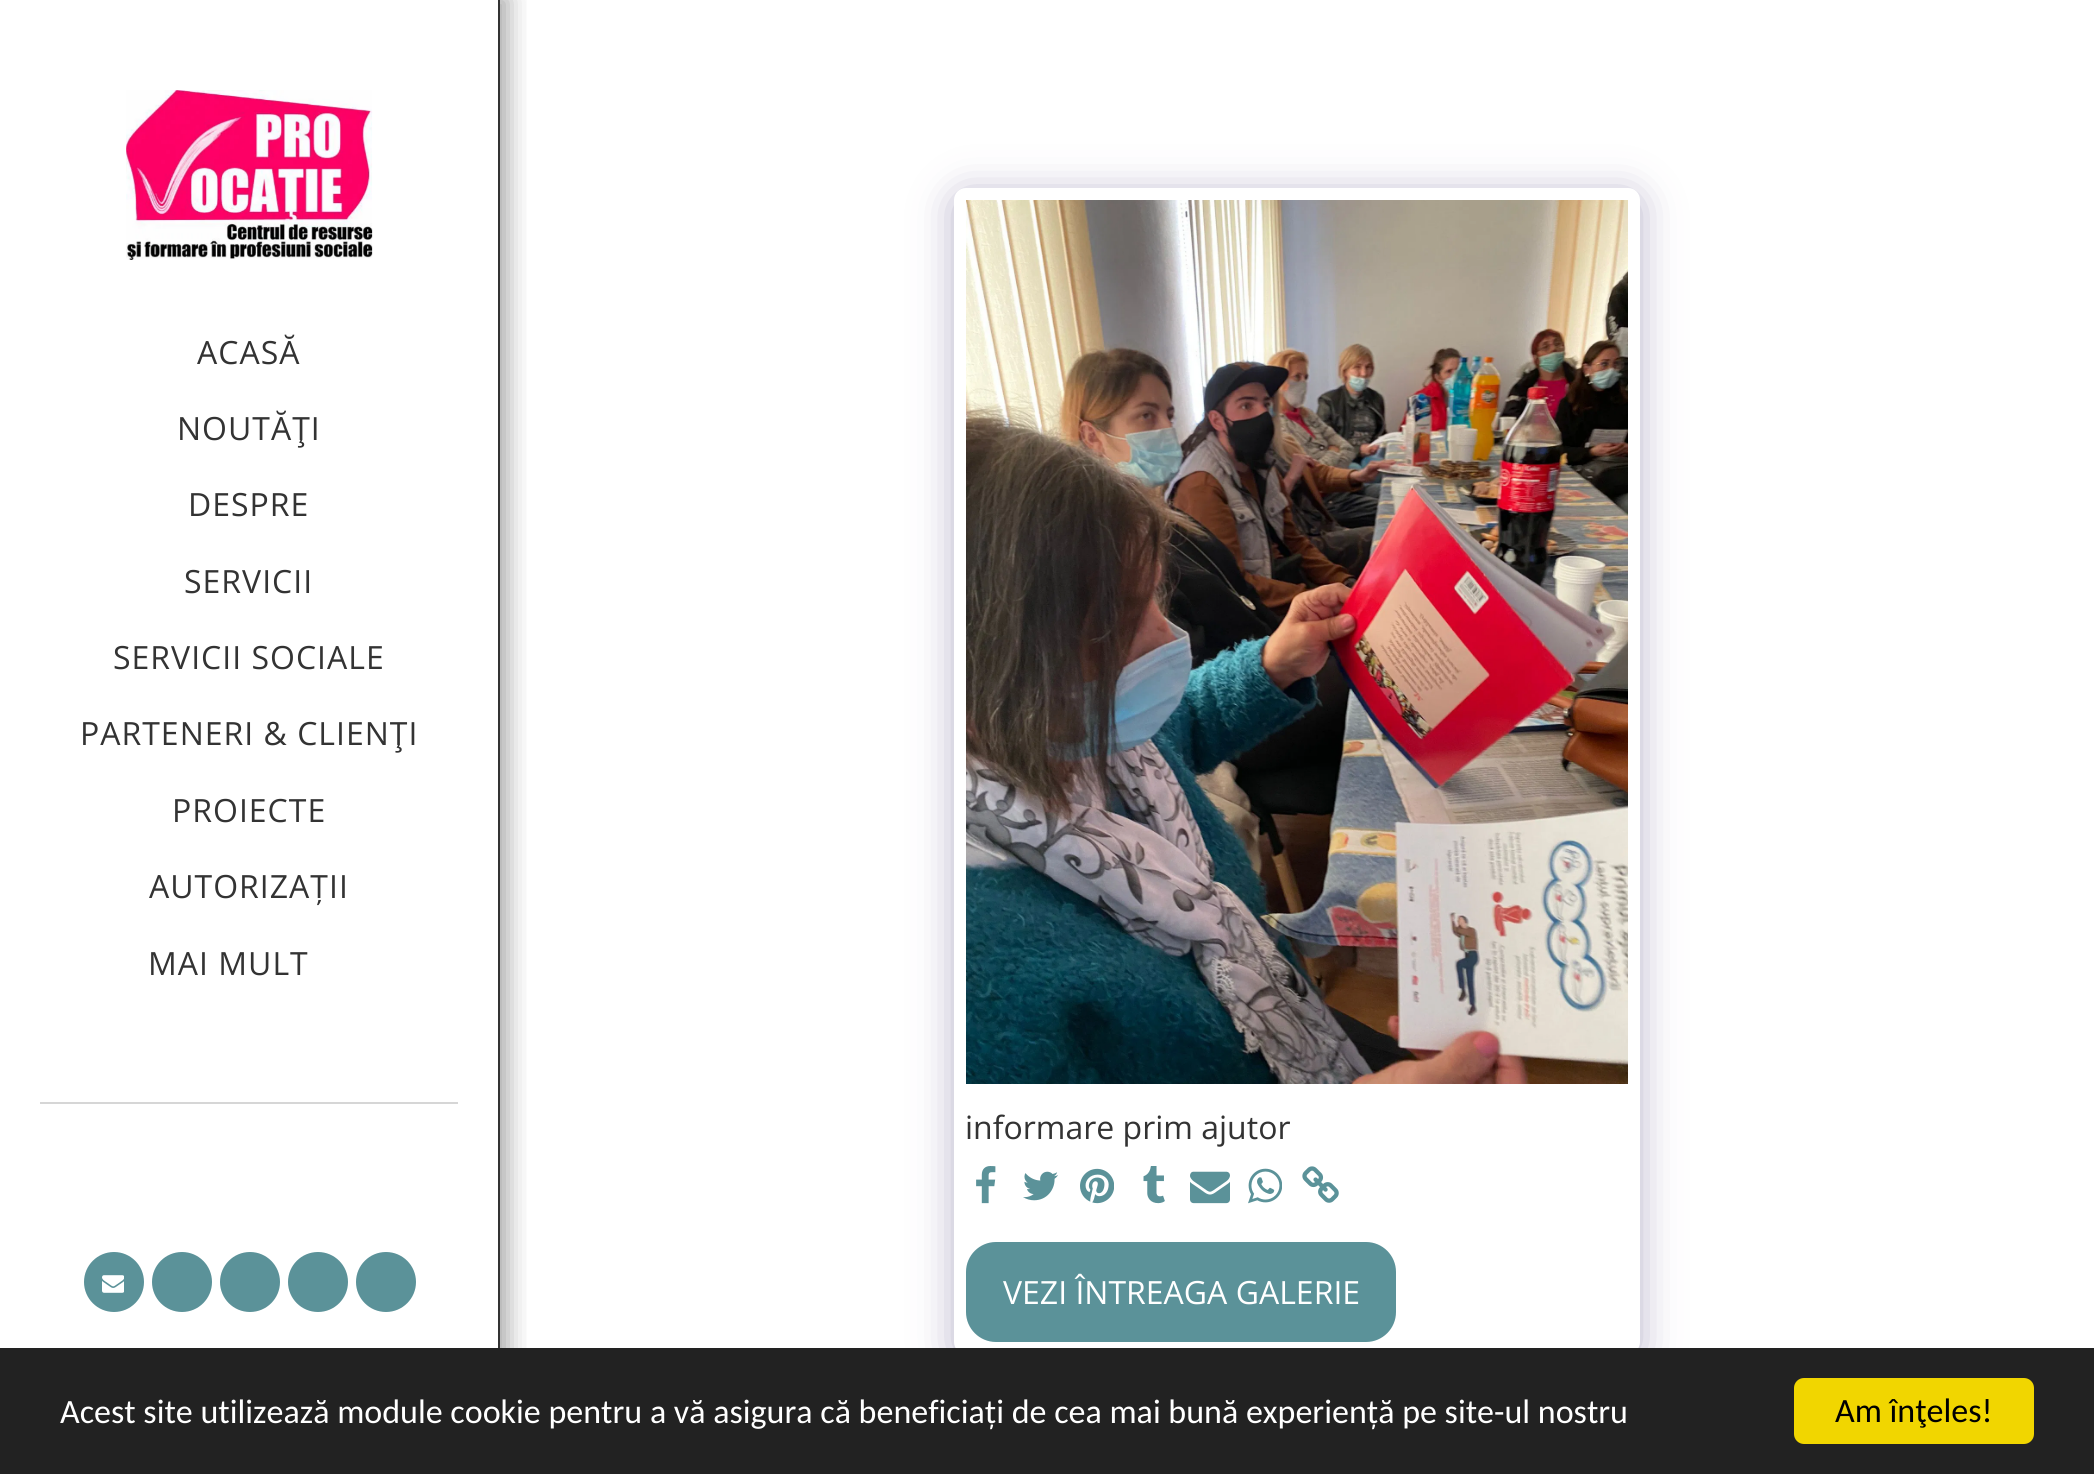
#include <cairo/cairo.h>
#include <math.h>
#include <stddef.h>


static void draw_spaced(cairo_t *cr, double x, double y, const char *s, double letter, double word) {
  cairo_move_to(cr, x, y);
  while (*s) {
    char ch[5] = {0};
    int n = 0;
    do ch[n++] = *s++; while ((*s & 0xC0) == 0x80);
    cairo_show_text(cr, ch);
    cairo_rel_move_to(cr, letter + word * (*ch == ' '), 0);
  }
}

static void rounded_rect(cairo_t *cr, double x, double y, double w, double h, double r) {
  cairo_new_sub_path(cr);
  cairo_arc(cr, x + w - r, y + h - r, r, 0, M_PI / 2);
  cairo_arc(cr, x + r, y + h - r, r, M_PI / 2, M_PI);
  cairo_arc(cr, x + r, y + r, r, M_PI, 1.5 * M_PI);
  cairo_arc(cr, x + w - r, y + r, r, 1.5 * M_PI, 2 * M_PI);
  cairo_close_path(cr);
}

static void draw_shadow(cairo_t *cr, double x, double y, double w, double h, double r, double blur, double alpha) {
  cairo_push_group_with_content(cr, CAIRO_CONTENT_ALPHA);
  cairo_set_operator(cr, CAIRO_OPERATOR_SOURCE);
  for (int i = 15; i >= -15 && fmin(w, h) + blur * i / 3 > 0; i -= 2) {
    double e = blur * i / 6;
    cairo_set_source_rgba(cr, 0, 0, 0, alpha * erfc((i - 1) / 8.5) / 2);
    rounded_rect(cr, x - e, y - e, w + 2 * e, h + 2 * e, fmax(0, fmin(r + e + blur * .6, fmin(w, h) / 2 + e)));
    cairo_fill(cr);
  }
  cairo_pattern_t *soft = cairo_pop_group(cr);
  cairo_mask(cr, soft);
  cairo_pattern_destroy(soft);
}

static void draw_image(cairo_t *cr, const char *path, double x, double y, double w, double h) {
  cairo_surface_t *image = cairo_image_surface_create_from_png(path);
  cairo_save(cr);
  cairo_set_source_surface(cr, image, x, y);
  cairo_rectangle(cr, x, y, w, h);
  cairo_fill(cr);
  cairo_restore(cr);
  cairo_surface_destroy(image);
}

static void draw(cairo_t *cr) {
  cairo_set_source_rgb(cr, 1, 1, 1);
  cairo_paint(cr);
  cairo_save(cr);
  cairo_rectangle(cr, 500, 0, 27, 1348);
  cairo_clip(cr);
  cairo_set_source_rgb(cr, 0, 0, 0);
  draw_shadow(cr, 0, -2, 508, 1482, 0, 12, 0.35);
  cairo_restore(cr);
  cairo_set_source_rgb(cr, 51 / 255.0, 51 / 255.0, 51 / 255.0);
  cairo_rectangle(cr, 498, 0, 2, 1348);
  cairo_fill(cr);
  draw_image(cr, "images/1.png", 126, 90, 247, 170);
  cairo_set_source_rgb(cr, 214 / 255.0, 214 / 255.0, 214 / 255.0);
  cairo_rectangle(cr, 40, 1102, 418, 2);
  cairo_fill(cr);
  cairo_set_source_rgb(cr, 91 / 255.0, 146 / 255.0, 153 / 255.0);
  cairo_arc(cr, 114, 1282, 30, 0, 2 * M_PI);
  cairo_fill(cr);
  draw_image(cr, "images/2.png", 102, 1275, 22, 18);
  cairo_arc(cr, 182, 1282, 30, 0, 2 * M_PI);
  cairo_fill(cr);
  cairo_arc(cr, 250, 1282, 30, 0, 2 * M_PI);
  cairo_fill(cr);
  cairo_arc(cr, 318, 1282, 30, 0, 2 * M_PI);
  cairo_fill(cr);
  cairo_arc(cr, 386, 1282, 30, 0, 2 * M_PI);
  cairo_fill(cr);
  cairo_set_source_rgb(cr, 77 / 255.0, 63 / 255.0, 122 / 255.0);
  draw_shadow(cr, 954, 194, 686, 1166, 12, 20, 0.4);
  cairo_set_source_rgb(cr, 1, 1, 1);
  rounded_rect(cr, 954, 188, 686, 1166, 12);
  cairo_fill(cr);
  draw_image(cr, "images/3.png", 966, 200, 662, 884);
  draw_image(cr, "images/4.png", 976, 1166, 20, 38);
  draw_image(cr, "images/5.png", 1023, 1171, 35, 30);
  draw_image(cr, "images/6.png", 1080, 1168, 34, 36);
  draw_image(cr, "images/7.png", 1143, 1166, 22, 38);
  draw_image(cr, "images/8.png", 1190, 1171, 40, 33);
  draw_image(cr, "images/9.png", 1248, 1168, 34, 36);
  draw_image(cr, "images/10.png", 1302, 1166, 37, 37);
  cairo_set_source_rgb(cr, 91 / 255.0, 146 / 255.0, 153 / 255.0);
  rounded_rect(cr, 967, 1243, 428, 98, 29);
  cairo_fill_preserve(cr);
  cairo_stroke(cr);
  cairo_set_source_rgb(cr, 34 / 255.0, 34 / 255.0, 34 / 255.0);
  cairo_rectangle(cr, 0, 1348, 2094, 126);
  cairo_fill(cr);
  cairo_set_source_rgb(cr, 241 / 255.0, 214 / 255.0, 0);
  rounded_rect(cr, 1794, 1378, 240, 66, 10);
  cairo_fill(cr);
  cairo_select_font_face(cr, "Open Sans", CAIRO_FONT_SLANT_NORMAL, CAIRO_FONT_WEIGHT_NORMAL);
  cairo_set_font_size(cr, 32);
  cairo_set_source_rgb(cr, 51 / 255.0, 51 / 255.0, 51 / 255.0);
  draw_spaced(cr, 197, 364, "ACASĂ", 1, 0);
  draw_spaced(cr, 177, 440, "NOUTĂŢI", 1, 0);
  draw_spaced(cr, 188, 516, "DESPRE", 1, 0);
  draw_spaced(cr, 184, 593, "SERVICII", 1, 0);
  draw_spaced(cr, 113, 669, "SERVICII SOCIALE", 1, 0);
  draw_spaced(cr, 80, 745, "PARTENERI & CLIENŢI", 1, 0);
  draw_spaced(cr, 172, 822, "PROIECTE", 1, 0);
  draw_spaced(cr, 149, 898, "AUTORIZAȚII", 1, 0);
  draw_spaced(cr, 148, 975, "MAI MULT", 1, 0);
  cairo_move_to(cr, 965, 1139);
  cairo_show_text(cr, "informare prim ajutor");
  cairo_set_source_rgb(cr, 1, 1, 1);
  cairo_move_to(cr, 1003, 1304);
  cairo_show_text(cr, "VEZI ÎNTREAGA GALERIE");
  cairo_select_font_face(cr, "Carlito", CAIRO_FONT_SLANT_NORMAL, CAIRO_FONT_WEIGHT_NORMAL);
  cairo_set_font_size(cr, 34);
  cairo_move_to(cr, 60, 1423);
  cairo_show_text(cr, "Acest site utilizează module cookie pentru a vă asigura că beneficiați de cea mai bună experiență pe site-ul nostru");
  cairo_set_source_rgb(cr, 0, 0, 0);
  cairo_move_to(cr, 1835, 1422);
  cairo_show_text(cr, "Am înţeles!");
}

int main(void) {
  cairo_surface_t *surface = cairo_image_surface_create(CAIRO_FORMAT_RGB24, 2094, 1474);
  cairo_t *cr = cairo_create(surface);
  cairo_font_options_t *options = cairo_font_options_create();
  cairo_font_options_set_hint_metrics(options, CAIRO_HINT_METRICS_OFF);
  cairo_font_options_set_hint_style(options, CAIRO_HINT_STYLE_NONE);
  cairo_set_font_options(cr, options);
  cairo_set_miter_limit(cr, 4);
  draw(cr);
  cairo_surface_write_to_png(surface, "out.png");
  cairo_font_options_destroy(options);
  cairo_destroy(cr);
  cairo_surface_destroy(surface);
  return 0;
}
